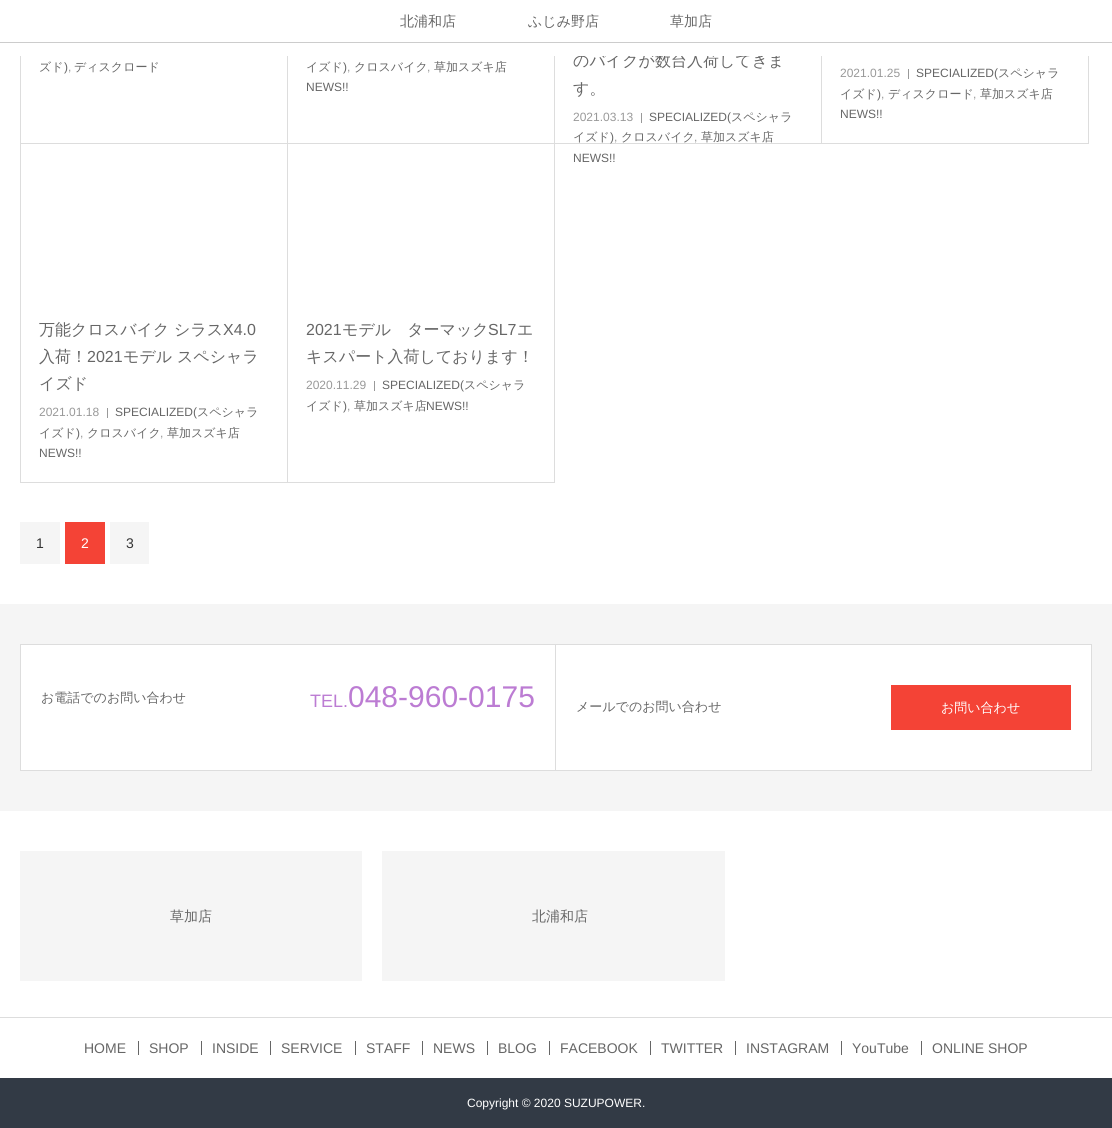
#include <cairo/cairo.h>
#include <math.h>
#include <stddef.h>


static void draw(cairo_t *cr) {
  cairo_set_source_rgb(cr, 1, 1, 1);
  cairo_paint(cr);
  cairo_rectangle(cr, 20.5, -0.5, 267, 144);
  cairo_set_source_rgb(cr, 221 / 255.0, 221 / 255.0, 221 / 255.0);
  cairo_set_line_width(cr, 1);
  cairo_stroke(cr);
  cairo_rectangle(cr, 287.5, -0.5, 267, 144);
  cairo_stroke(cr);
  cairo_rectangle(cr, 554.5, -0.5, 267, 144);
  cairo_stroke(cr);
  cairo_set_source_rgb(cr, 153 / 255.0, 153 / 255.0, 153 / 255.0);
  cairo_rectangle(cr, 641, 113, 1, 10);
  cairo_fill(cr);
  cairo_rectangle(cr, 821.5, -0.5, 267, 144);
  cairo_set_source_rgb(cr, 221 / 255.0, 221 / 255.0, 221 / 255.0);
  cairo_stroke(cr);
  cairo_set_source_rgb(cr, 153 / 255.0, 153 / 255.0, 153 / 255.0);
  cairo_rectangle(cr, 908, 69, 1, 10);
  cairo_fill(cr);
  cairo_rectangle(cr, 20.5, 143.5, 267, 339);
  cairo_set_source_rgb(cr, 221 / 255.0, 221 / 255.0, 221 / 255.0);
  cairo_stroke(cr);
  cairo_set_source_rgb(cr, 153 / 255.0, 153 / 255.0, 153 / 255.0);
  cairo_rectangle(cr, 107, 408, 1, 10);
  cairo_fill(cr);
  cairo_rectangle(cr, 287.5, 143.5, 267, 339);
  cairo_set_source_rgb(cr, 221 / 255.0, 221 / 255.0, 221 / 255.0);
  cairo_stroke(cr);
  cairo_set_source_rgb(cr, 153 / 255.0, 153 / 255.0, 153 / 255.0);
  cairo_rectangle(cr, 374, 381, 1, 10);
  cairo_fill(cr);
  cairo_set_source_rgb(cr, 245 / 255.0, 245 / 255.0, 245 / 255.0);
  cairo_rectangle(cr, 20, 522, 40, 42);
  cairo_fill(cr);
  cairo_set_source_rgb(cr, 244 / 255.0, 67 / 255.0, 54 / 255.0);
  cairo_rectangle(cr, 65, 522, 40, 42);
  cairo_fill(cr);
  cairo_set_source_rgb(cr, 245 / 255.0, 245 / 255.0, 245 / 255.0);
  cairo_rectangle(cr, 110, 522, 39, 42);
  cairo_fill(cr);
  cairo_rectangle(cr, 0, 604, 1112, 207);
  cairo_fill(cr);
  cairo_set_source_rgb(cr, 1, 1, 1);
  cairo_rectangle(cr, 20.5, 644.5, 535, 126);
  cairo_fill_preserve(cr);
  cairo_set_source_rgb(cr, 221 / 255.0, 221 / 255.0, 221 / 255.0);
  cairo_stroke(cr);
  cairo_set_source_rgb(cr, 1, 1, 1);
  cairo_rectangle(cr, 556, 645, 535, 125);
  cairo_fill(cr);
  cairo_set_source_rgb(cr, 221 / 255.0, 221 / 255.0, 221 / 255.0);
  cairo_rectangle(cr, 556, 644, 536, 1);
  cairo_fill(cr);
  cairo_rectangle(cr, 1091, 644, 1, 127);
  cairo_fill(cr);
  cairo_rectangle(cr, 556, 770, 536, 1);
  cairo_fill(cr);
  cairo_set_source_rgb(cr, 244 / 255.0, 67 / 255.0, 54 / 255.0);
  cairo_rectangle(cr, 891, 685, 180, 45);
  cairo_fill(cr);
  cairo_set_source_rgb(cr, 245 / 255.0, 245 / 255.0, 245 / 255.0);
  cairo_rectangle(cr, 20, 851, 342, 130);
  cairo_fill(cr);
  cairo_rectangle(cr, 382, 851, 343, 130);
  cairo_fill(cr);
  cairo_set_source_rgb(cr, 221 / 255.0, 221 / 255.0, 221 / 255.0);
  cairo_rectangle(cr, 0, 1017, 1112, 1);
  cairo_fill(cr);
  cairo_set_source_rgb(cr, 102 / 255.0, 102 / 255.0, 102 / 255.0);
  cairo_rectangle(cr, 138, 1041, 1, 14);
  cairo_fill(cr);
  cairo_rectangle(cr, 201, 1041, 1, 14);
  cairo_fill(cr);
  cairo_rectangle(cr, 270, 1041, 1, 14);
  cairo_fill(cr);
  cairo_rectangle(cr, 355, 1041, 1, 14);
  cairo_fill(cr);
  cairo_rectangle(cr, 422, 1041, 1, 14);
  cairo_fill(cr);
  cairo_rectangle(cr, 487, 1041, 1, 14);
  cairo_fill(cr);
  cairo_rectangle(cr, 549, 1041, 1, 14);
  cairo_fill(cr);
  cairo_rectangle(cr, 650, 1041, 1, 14);
  cairo_fill(cr);
  cairo_rectangle(cr, 735, 1041, 1, 14);
  cairo_fill(cr);
  cairo_rectangle(cr, 841, 1041, 1, 14);
  cairo_fill(cr);
  cairo_rectangle(cr, 921, 1041, 1, 14);
  cairo_fill(cr);
  cairo_set_source_rgb(cr, 50 / 255.0, 58 / 255.0, 69 / 255.0);
  cairo_rectangle(cr, 0, 1078, 1112, 50);
  cairo_fill(cr);
  cairo_select_font_face(cr, "WenQuanYi Zen Hei Medium", CAIRO_FONT_SLANT_NORMAL, CAIRO_FONT_WEIGHT_NORMAL);
  cairo_set_font_size(cr, 12);
  cairo_set_source_rgb(cr, 102 / 255.0, 102 / 255.0, 102 / 255.0);
  cairo_move_to(cr, 39, 71);
  cairo_show_text(cr, "ズド");
  cairo_select_font_face(cr, "Liberation Sans", CAIRO_FONT_SLANT_NORMAL, CAIRO_FONT_WEIGHT_NORMAL);
  cairo_move_to(cr, 64, 71);
  cairo_show_text(cr, ")");
  cairo_set_source_rgb(cr, 153 / 255.0, 153 / 255.0, 153 / 255.0);
  cairo_move_to(cr, 68, 71);
  cairo_show_text(cr, ",");
  cairo_select_font_face(cr, "WenQuanYi Zen Hei Medium", CAIRO_FONT_SLANT_NORMAL, CAIRO_FONT_WEIGHT_NORMAL);
  cairo_set_source_rgb(cr, 102 / 255.0, 102 / 255.0, 102 / 255.0);
  cairo_move_to(cr, 74, 71);
  cairo_show_text(cr, "ディスクロード");
  cairo_move_to(cr, 306, 71);
  cairo_show_text(cr, "イズド");
  cairo_select_font_face(cr, "Liberation Sans", CAIRO_FONT_SLANT_NORMAL, CAIRO_FONT_WEIGHT_NORMAL);
  cairo_move_to(cr, 343, 71);
  cairo_show_text(cr, ")");
  cairo_set_source_rgb(cr, 153 / 255.0, 153 / 255.0, 153 / 255.0);
  cairo_move_to(cr, 347, 71);
  cairo_show_text(cr, ",");
  cairo_select_font_face(cr, "WenQuanYi Zen Hei Medium", CAIRO_FONT_SLANT_NORMAL, CAIRO_FONT_WEIGHT_NORMAL);
  cairo_set_source_rgb(cr, 102 / 255.0, 102 / 255.0, 102 / 255.0);
  cairo_move_to(cr, 354, 71);
  cairo_show_text(cr, "クロスバイク");
  cairo_select_font_face(cr, "Liberation Sans", CAIRO_FONT_SLANT_NORMAL, CAIRO_FONT_WEIGHT_NORMAL);
  cairo_set_source_rgb(cr, 153 / 255.0, 153 / 255.0, 153 / 255.0);
  cairo_move_to(cr, 427, 71);
  cairo_show_text(cr, ",");
  cairo_select_font_face(cr, "WenQuanYi Zen Hei Medium", CAIRO_FONT_SLANT_NORMAL, CAIRO_FONT_WEIGHT_NORMAL);
  cairo_set_source_rgb(cr, 102 / 255.0, 102 / 255.0, 102 / 255.0);
  cairo_move_to(cr, 434, 71);
  cairo_show_text(cr, "草加スズキ店");
  cairo_select_font_face(cr, "Liberation Sans", CAIRO_FONT_SLANT_NORMAL, CAIRO_FONT_WEIGHT_NORMAL);
  cairo_move_to(cr, 306, 91);
  cairo_show_text(cr, "NEWS!!");
  cairo_select_font_face(cr, "WenQuanYi Zen Hei Medium", CAIRO_FONT_SLANT_NORMAL, CAIRO_FONT_WEIGHT_NORMAL);
  cairo_set_font_size(cr, 16);
  cairo_move_to(cr, 573, 66);
  cairo_show_text(cr, "のバイクが数台入荷してきま");
  cairo_set_source_rgb(cr, 1, 1, 1);
  cairo_rectangle(cr, 20, 0, 1069, 56);
  cairo_fill(cr);
  cairo_set_source_rgb(cr, 204 / 255.0, 204 / 255.0, 204 / 255.0);
  cairo_rectangle(cr, 0, 42, 1112, 1);
  cairo_fill(cr);
  cairo_set_font_size(cr, 14);
  cairo_set_source_rgb(cr, 102 / 255.0, 102 / 255.0, 102 / 255.0);
  cairo_move_to(cr, 670, 26);
  cairo_show_text(cr, "草加店");
  cairo_move_to(cr, 528, 26);
  cairo_show_text(cr, "ふじみ野店");
  cairo_move_to(cr, 400, 26);
  cairo_show_text(cr, "北浦和店");
  cairo_set_font_size(cr, 16);
  cairo_move_to(cr, 573, 94);
  cairo_show_text(cr, "す。");
  cairo_select_font_face(cr, "Liberation Sans", CAIRO_FONT_SLANT_NORMAL, CAIRO_FONT_WEIGHT_NORMAL);
  cairo_set_font_size(cr, 12);
  cairo_set_source_rgb(cr, 153 / 255.0, 153 / 255.0, 153 / 255.0);
  cairo_move_to(cr, 573, 121);
  cairo_show_text(cr, "2021.03.13");
  cairo_set_source_rgb(cr, 102 / 255.0, 102 / 255.0, 102 / 255.0);
  cairo_move_to(cr, 649, 121);
  cairo_show_text(cr, "SPECIALIZED(");
  cairo_select_font_face(cr, "WenQuanYi Zen Hei Medium", CAIRO_FONT_SLANT_NORMAL, CAIRO_FONT_WEIGHT_NORMAL);
  cairo_move_to(cr, 731, 121);
  cairo_show_text(cr, "スペシャラ");
  cairo_move_to(cr, 573, 141);
  cairo_show_text(cr, "イズド");
  cairo_select_font_face(cr, "Liberation Sans", CAIRO_FONT_SLANT_NORMAL, CAIRO_FONT_WEIGHT_NORMAL);
  cairo_move_to(cr, 610, 141);
  cairo_show_text(cr, ")");
  cairo_set_source_rgb(cr, 153 / 255.0, 153 / 255.0, 153 / 255.0);
  cairo_move_to(cr, 614, 141);
  cairo_show_text(cr, ",");
  cairo_select_font_face(cr, "WenQuanYi Zen Hei Medium", CAIRO_FONT_SLANT_NORMAL, CAIRO_FONT_WEIGHT_NORMAL);
  cairo_set_source_rgb(cr, 102 / 255.0, 102 / 255.0, 102 / 255.0);
  cairo_move_to(cr, 621, 141);
  cairo_show_text(cr, "クロスバイク");
  cairo_select_font_face(cr, "Liberation Sans", CAIRO_FONT_SLANT_NORMAL, CAIRO_FONT_WEIGHT_NORMAL);
  cairo_set_source_rgb(cr, 153 / 255.0, 153 / 255.0, 153 / 255.0);
  cairo_move_to(cr, 694, 141);
  cairo_show_text(cr, ",");
  cairo_select_font_face(cr, "WenQuanYi Zen Hei Medium", CAIRO_FONT_SLANT_NORMAL, CAIRO_FONT_WEIGHT_NORMAL);
  cairo_set_source_rgb(cr, 102 / 255.0, 102 / 255.0, 102 / 255.0);
  cairo_move_to(cr, 701, 141);
  cairo_show_text(cr, "草加スズキ店");
  cairo_select_font_face(cr, "Liberation Sans", CAIRO_FONT_SLANT_NORMAL, CAIRO_FONT_WEIGHT_NORMAL);
  cairo_move_to(cr, 573, 162);
  cairo_show_text(cr, "NEWS!!");
  cairo_set_source_rgb(cr, 153 / 255.0, 153 / 255.0, 153 / 255.0);
  cairo_move_to(cr, 840, 77);
  cairo_show_text(cr, "2021.01.25");
  cairo_set_source_rgb(cr, 102 / 255.0, 102 / 255.0, 102 / 255.0);
  cairo_move_to(cr, 916, 77);
  cairo_show_text(cr, "SPECIALIZED(");
  cairo_select_font_face(cr, "WenQuanYi Zen Hei Medium", CAIRO_FONT_SLANT_NORMAL, CAIRO_FONT_WEIGHT_NORMAL);
  cairo_move_to(cr, 998, 77);
  cairo_show_text(cr, "スペシャラ");
  cairo_move_to(cr, 840, 98);
  cairo_show_text(cr, "イズド");
  cairo_select_font_face(cr, "Liberation Sans", CAIRO_FONT_SLANT_NORMAL, CAIRO_FONT_WEIGHT_NORMAL);
  cairo_move_to(cr, 877, 98);
  cairo_show_text(cr, ")");
  cairo_set_source_rgb(cr, 153 / 255.0, 153 / 255.0, 153 / 255.0);
  cairo_move_to(cr, 881, 98);
  cairo_show_text(cr, ",");
  cairo_select_font_face(cr, "WenQuanYi Zen Hei Medium", CAIRO_FONT_SLANT_NORMAL, CAIRO_FONT_WEIGHT_NORMAL);
  cairo_set_source_rgb(cr, 102 / 255.0, 102 / 255.0, 102 / 255.0);
  cairo_move_to(cr, 888, 98);
  cairo_show_text(cr, "ディスクロード");
  cairo_select_font_face(cr, "Liberation Sans", CAIRO_FONT_SLANT_NORMAL, CAIRO_FONT_WEIGHT_NORMAL);
  cairo_set_source_rgb(cr, 153 / 255.0, 153 / 255.0, 153 / 255.0);
  cairo_move_to(cr, 973, 98);
  cairo_show_text(cr, ",");
  cairo_select_font_face(cr, "WenQuanYi Zen Hei Medium", CAIRO_FONT_SLANT_NORMAL, CAIRO_FONT_WEIGHT_NORMAL);
  cairo_set_source_rgb(cr, 102 / 255.0, 102 / 255.0, 102 / 255.0);
  cairo_move_to(cr, 980, 98);
  cairo_show_text(cr, "草加スズキ店");
  cairo_select_font_face(cr, "Liberation Sans", CAIRO_FONT_SLANT_NORMAL, CAIRO_FONT_WEIGHT_NORMAL);
  cairo_move_to(cr, 840, 118);
  cairo_show_text(cr, "NEWS!!");
  cairo_select_font_face(cr, "WenQuanYi Zen Hei Medium", CAIRO_FONT_SLANT_NORMAL, CAIRO_FONT_WEIGHT_NORMAL);
  cairo_set_font_size(cr, 16);
  cairo_move_to(cr, 39, 335);
  cairo_show_text(cr, "万能クロスバイク シラス");
  cairo_select_font_face(cr, "Liberation Sans", CAIRO_FONT_SLANT_NORMAL, CAIRO_FONT_WEIGHT_NORMAL);
  cairo_move_to(cr, 223, 335);
  cairo_show_text(cr, "X4.0");
  cairo_select_font_face(cr, "WenQuanYi Zen Hei Medium", CAIRO_FONT_SLANT_NORMAL, CAIRO_FONT_WEIGHT_NORMAL);
  cairo_move_to(cr, 39, 362);
  cairo_show_text(cr, "入荷！");
  cairo_select_font_face(cr, "Liberation Sans", CAIRO_FONT_SLANT_NORMAL, CAIRO_FONT_WEIGHT_NORMAL);
  cairo_move_to(cr, 87, 362);
  cairo_show_text(cr, "2021");
  cairo_select_font_face(cr, "WenQuanYi Zen Hei Medium", CAIRO_FONT_SLANT_NORMAL, CAIRO_FONT_WEIGHT_NORMAL);
  cairo_move_to(cr, 123, 362);
  cairo_show_text(cr, "モデル スペシャラ");
  cairo_move_to(cr, 39, 389);
  cairo_show_text(cr, "イズド");
  cairo_select_font_face(cr, "Liberation Sans", CAIRO_FONT_SLANT_NORMAL, CAIRO_FONT_WEIGHT_NORMAL);
  cairo_set_font_size(cr, 12);
  cairo_set_source_rgb(cr, 153 / 255.0, 153 / 255.0, 153 / 255.0);
  cairo_move_to(cr, 39, 416);
  cairo_show_text(cr, "2021.01.18");
  cairo_set_source_rgb(cr, 102 / 255.0, 102 / 255.0, 102 / 255.0);
  cairo_move_to(cr, 115, 416);
  cairo_show_text(cr, "SPECIALIZED(");
  cairo_select_font_face(cr, "WenQuanYi Zen Hei Medium", CAIRO_FONT_SLANT_NORMAL, CAIRO_FONT_WEIGHT_NORMAL);
  cairo_move_to(cr, 197, 416);
  cairo_show_text(cr, "スペシャラ");
  cairo_move_to(cr, 39, 437);
  cairo_show_text(cr, "イズド");
  cairo_select_font_face(cr, "Liberation Sans", CAIRO_FONT_SLANT_NORMAL, CAIRO_FONT_WEIGHT_NORMAL);
  cairo_move_to(cr, 76, 437);
  cairo_show_text(cr, ")");
  cairo_set_source_rgb(cr, 153 / 255.0, 153 / 255.0, 153 / 255.0);
  cairo_move_to(cr, 80, 437);
  cairo_show_text(cr, ",");
  cairo_select_font_face(cr, "WenQuanYi Zen Hei Medium", CAIRO_FONT_SLANT_NORMAL, CAIRO_FONT_WEIGHT_NORMAL);
  cairo_set_source_rgb(cr, 102 / 255.0, 102 / 255.0, 102 / 255.0);
  cairo_move_to(cr, 87, 437);
  cairo_show_text(cr, "クロスバイク");
  cairo_select_font_face(cr, "Liberation Sans", CAIRO_FONT_SLANT_NORMAL, CAIRO_FONT_WEIGHT_NORMAL);
  cairo_set_source_rgb(cr, 153 / 255.0, 153 / 255.0, 153 / 255.0);
  cairo_move_to(cr, 160, 437);
  cairo_show_text(cr, ",");
  cairo_select_font_face(cr, "WenQuanYi Zen Hei Medium", CAIRO_FONT_SLANT_NORMAL, CAIRO_FONT_WEIGHT_NORMAL);
  cairo_set_source_rgb(cr, 102 / 255.0, 102 / 255.0, 102 / 255.0);
  cairo_move_to(cr, 167, 437);
  cairo_show_text(cr, "草加スズキ店");
  cairo_select_font_face(cr, "Liberation Sans", CAIRO_FONT_SLANT_NORMAL, CAIRO_FONT_WEIGHT_NORMAL);
  cairo_move_to(cr, 39, 457);
  cairo_show_text(cr, "NEWS!!");
  cairo_set_font_size(cr, 16);
  cairo_move_to(cr, 306, 335);
  cairo_show_text(cr, "2021");
  cairo_select_font_face(cr, "WenQuanYi Zen Hei Medium", CAIRO_FONT_SLANT_NORMAL, CAIRO_FONT_WEIGHT_NORMAL);
  cairo_move_to(cr, 342, 335);
  cairo_show_text(cr, "モデル　ターマック");
  cairo_select_font_face(cr, "Liberation Sans", CAIRO_FONT_SLANT_NORMAL, CAIRO_FONT_WEIGHT_NORMAL);
  cairo_move_to(cr, 488, 335);
  cairo_show_text(cr, "SL7");
  cairo_select_font_face(cr, "WenQuanYi Zen Hei Medium", CAIRO_FONT_SLANT_NORMAL, CAIRO_FONT_WEIGHT_NORMAL);
  cairo_move_to(cr, 517, 335);
  cairo_show_text(cr, "エ");
  cairo_move_to(cr, 306, 362);
  cairo_show_text(cr, "キスパート入荷しております！");
  cairo_select_font_face(cr, "Liberation Sans", CAIRO_FONT_SLANT_NORMAL, CAIRO_FONT_WEIGHT_NORMAL);
  cairo_set_font_size(cr, 12);
  cairo_set_source_rgb(cr, 153 / 255.0, 153 / 255.0, 153 / 255.0);
  cairo_move_to(cr, 306, 389);
  cairo_show_text(cr, "2020.11.29");
  cairo_set_source_rgb(cr, 102 / 255.0, 102 / 255.0, 102 / 255.0);
  cairo_move_to(cr, 382, 389);
  cairo_show_text(cr, "SPECIALIZED(");
  cairo_select_font_face(cr, "WenQuanYi Zen Hei Medium", CAIRO_FONT_SLANT_NORMAL, CAIRO_FONT_WEIGHT_NORMAL);
  cairo_move_to(cr, 464, 389);
  cairo_show_text(cr, "スペシャラ");
  cairo_move_to(cr, 306, 410);
  cairo_show_text(cr, "イズド");
  cairo_select_font_face(cr, "Liberation Sans", CAIRO_FONT_SLANT_NORMAL, CAIRO_FONT_WEIGHT_NORMAL);
  cairo_move_to(cr, 343, 410);
  cairo_show_text(cr, ")");
  cairo_set_source_rgb(cr, 153 / 255.0, 153 / 255.0, 153 / 255.0);
  cairo_move_to(cr, 347, 410);
  cairo_show_text(cr, ",");
  cairo_select_font_face(cr, "WenQuanYi Zen Hei Medium", CAIRO_FONT_SLANT_NORMAL, CAIRO_FONT_WEIGHT_NORMAL);
  cairo_set_source_rgb(cr, 102 / 255.0, 102 / 255.0, 102 / 255.0);
  cairo_move_to(cr, 354, 410);
  cairo_show_text(cr, "草加スズキ店");
  cairo_select_font_face(cr, "Liberation Sans", CAIRO_FONT_SLANT_NORMAL, CAIRO_FONT_WEIGHT_NORMAL);
  cairo_move_to(cr, 426, 410);
  cairo_show_text(cr, "NEWS!!");
  cairo_set_font_size(cr, 14);
  cairo_set_source_rgb(cr, 51 / 255.0, 51 / 255.0, 51 / 255.0);
  cairo_move_to(cr, 36, 548);
  cairo_show_text(cr, "1");
  cairo_set_source_rgb(cr, 1, 1, 1);
  cairo_move_to(cr, 81, 548);
  cairo_show_text(cr, "2");
  cairo_set_source_rgb(cr, 51 / 255.0, 51 / 255.0, 51 / 255.0);
  cairo_move_to(cr, 126, 548);
  cairo_show_text(cr, "3");
  cairo_select_font_face(cr, "WenQuanYi Zen Hei Medium", CAIRO_FONT_SLANT_NORMAL, CAIRO_FONT_WEIGHT_NORMAL);
  cairo_set_font_size(cr, 13);
  cairo_set_source_rgb(cr, 102 / 255.0, 102 / 255.0, 102 / 255.0);
  cairo_move_to(cr, 41, 702);
  cairo_show_text(cr, "お電話でのお問い合わせ");
  cairo_select_font_face(cr, "Liberation Sans", CAIRO_FONT_SLANT_NORMAL, CAIRO_FONT_WEIGHT_NORMAL);
  cairo_set_font_size(cr, 18);
  cairo_set_source_rgb(cr, 188 / 255.0, 124 / 255.0, 211 / 255.0);
  cairo_move_to(cr, 310, 707);
  cairo_show_text(cr, "TEL.");
  cairo_set_font_size(cr, 30);
  cairo_move_to(cr, 348, 707);
  cairo_show_text(cr, "048-960-0175");
  cairo_select_font_face(cr, "WenQuanYi Zen Hei Medium", CAIRO_FONT_SLANT_NORMAL, CAIRO_FONT_WEIGHT_NORMAL);
  cairo_set_font_size(cr, 13);
  cairo_set_source_rgb(cr, 102 / 255.0, 102 / 255.0, 102 / 255.0);
  cairo_move_to(cr, 576, 711);
  cairo_show_text(cr, "メールでのお問い合わせ");
  cairo_set_source_rgb(cr, 1, 1, 1);
  cairo_move_to(cr, 941, 712);
  cairo_show_text(cr, "お問い合わせ");
  cairo_set_font_size(cr, 14);
  cairo_set_source_rgb(cr, 102 / 255.0, 102 / 255.0, 102 / 255.0);
  cairo_move_to(cr, 170, 921);
  cairo_show_text(cr, "草加店");
  cairo_move_to(cr, 532, 921);
  cairo_show_text(cr, "北浦和店");
  cairo_select_font_face(cr, "Liberation Sans", CAIRO_FONT_SLANT_NORMAL, CAIRO_FONT_WEIGHT_NORMAL);
  cairo_move_to(cr, 84, 1053);
  cairo_show_text(cr, "HOME");
  cairo_move_to(cr, 149, 1053);
  cairo_show_text(cr, "SHOP");
  cairo_move_to(cr, 212, 1053);
  cairo_show_text(cr, "INSIDE");
  cairo_move_to(cr, 281, 1053);
  cairo_show_text(cr, "SERVICE");
  cairo_move_to(cr, 366, 1053);
  cairo_show_text(cr, "STAFF");
  cairo_move_to(cr, 433, 1053);
  cairo_show_text(cr, "NEWS");
  cairo_move_to(cr, 498, 1053);
  cairo_show_text(cr, "BLOG");
  cairo_move_to(cr, 560, 1053);
  cairo_show_text(cr, "FACEBOOK");
  cairo_move_to(cr, 661, 1053);
  cairo_show_text(cr, "TWITTER");
  cairo_move_to(cr, 746, 1053);
  cairo_show_text(cr, "INSTAGRAM");
  cairo_move_to(cr, 852, 1053);
  cairo_show_text(cr, "YouTube");
  cairo_move_to(cr, 932, 1053);
  cairo_show_text(cr, "ONLINE SHOP");
  cairo_set_font_size(cr, 12);
  cairo_set_source_rgb(cr, 1, 1, 1);
  cairo_move_to(cr, 467, 1107);
  cairo_show_text(cr, "Copyright © 2020 SUZUPOWER.");
}

int main(void) {
  cairo_surface_t *surface = cairo_image_surface_create(CAIRO_FORMAT_RGB24, 1112, 1128);
  cairo_t *cr = cairo_create(surface);
  cairo_font_options_t *options = cairo_font_options_create();
  cairo_font_options_set_hint_metrics(options, CAIRO_HINT_METRICS_OFF);
  cairo_font_options_set_hint_style(options, CAIRO_HINT_STYLE_NONE);
  cairo_set_font_options(cr, options);
  cairo_set_miter_limit(cr, 4);
  draw(cr);
  cairo_surface_write_to_png(surface, "out.png");
  cairo_font_options_destroy(options);
  cairo_destroy(cr);
  cairo_surface_destroy(surface);
  return 0;
}
